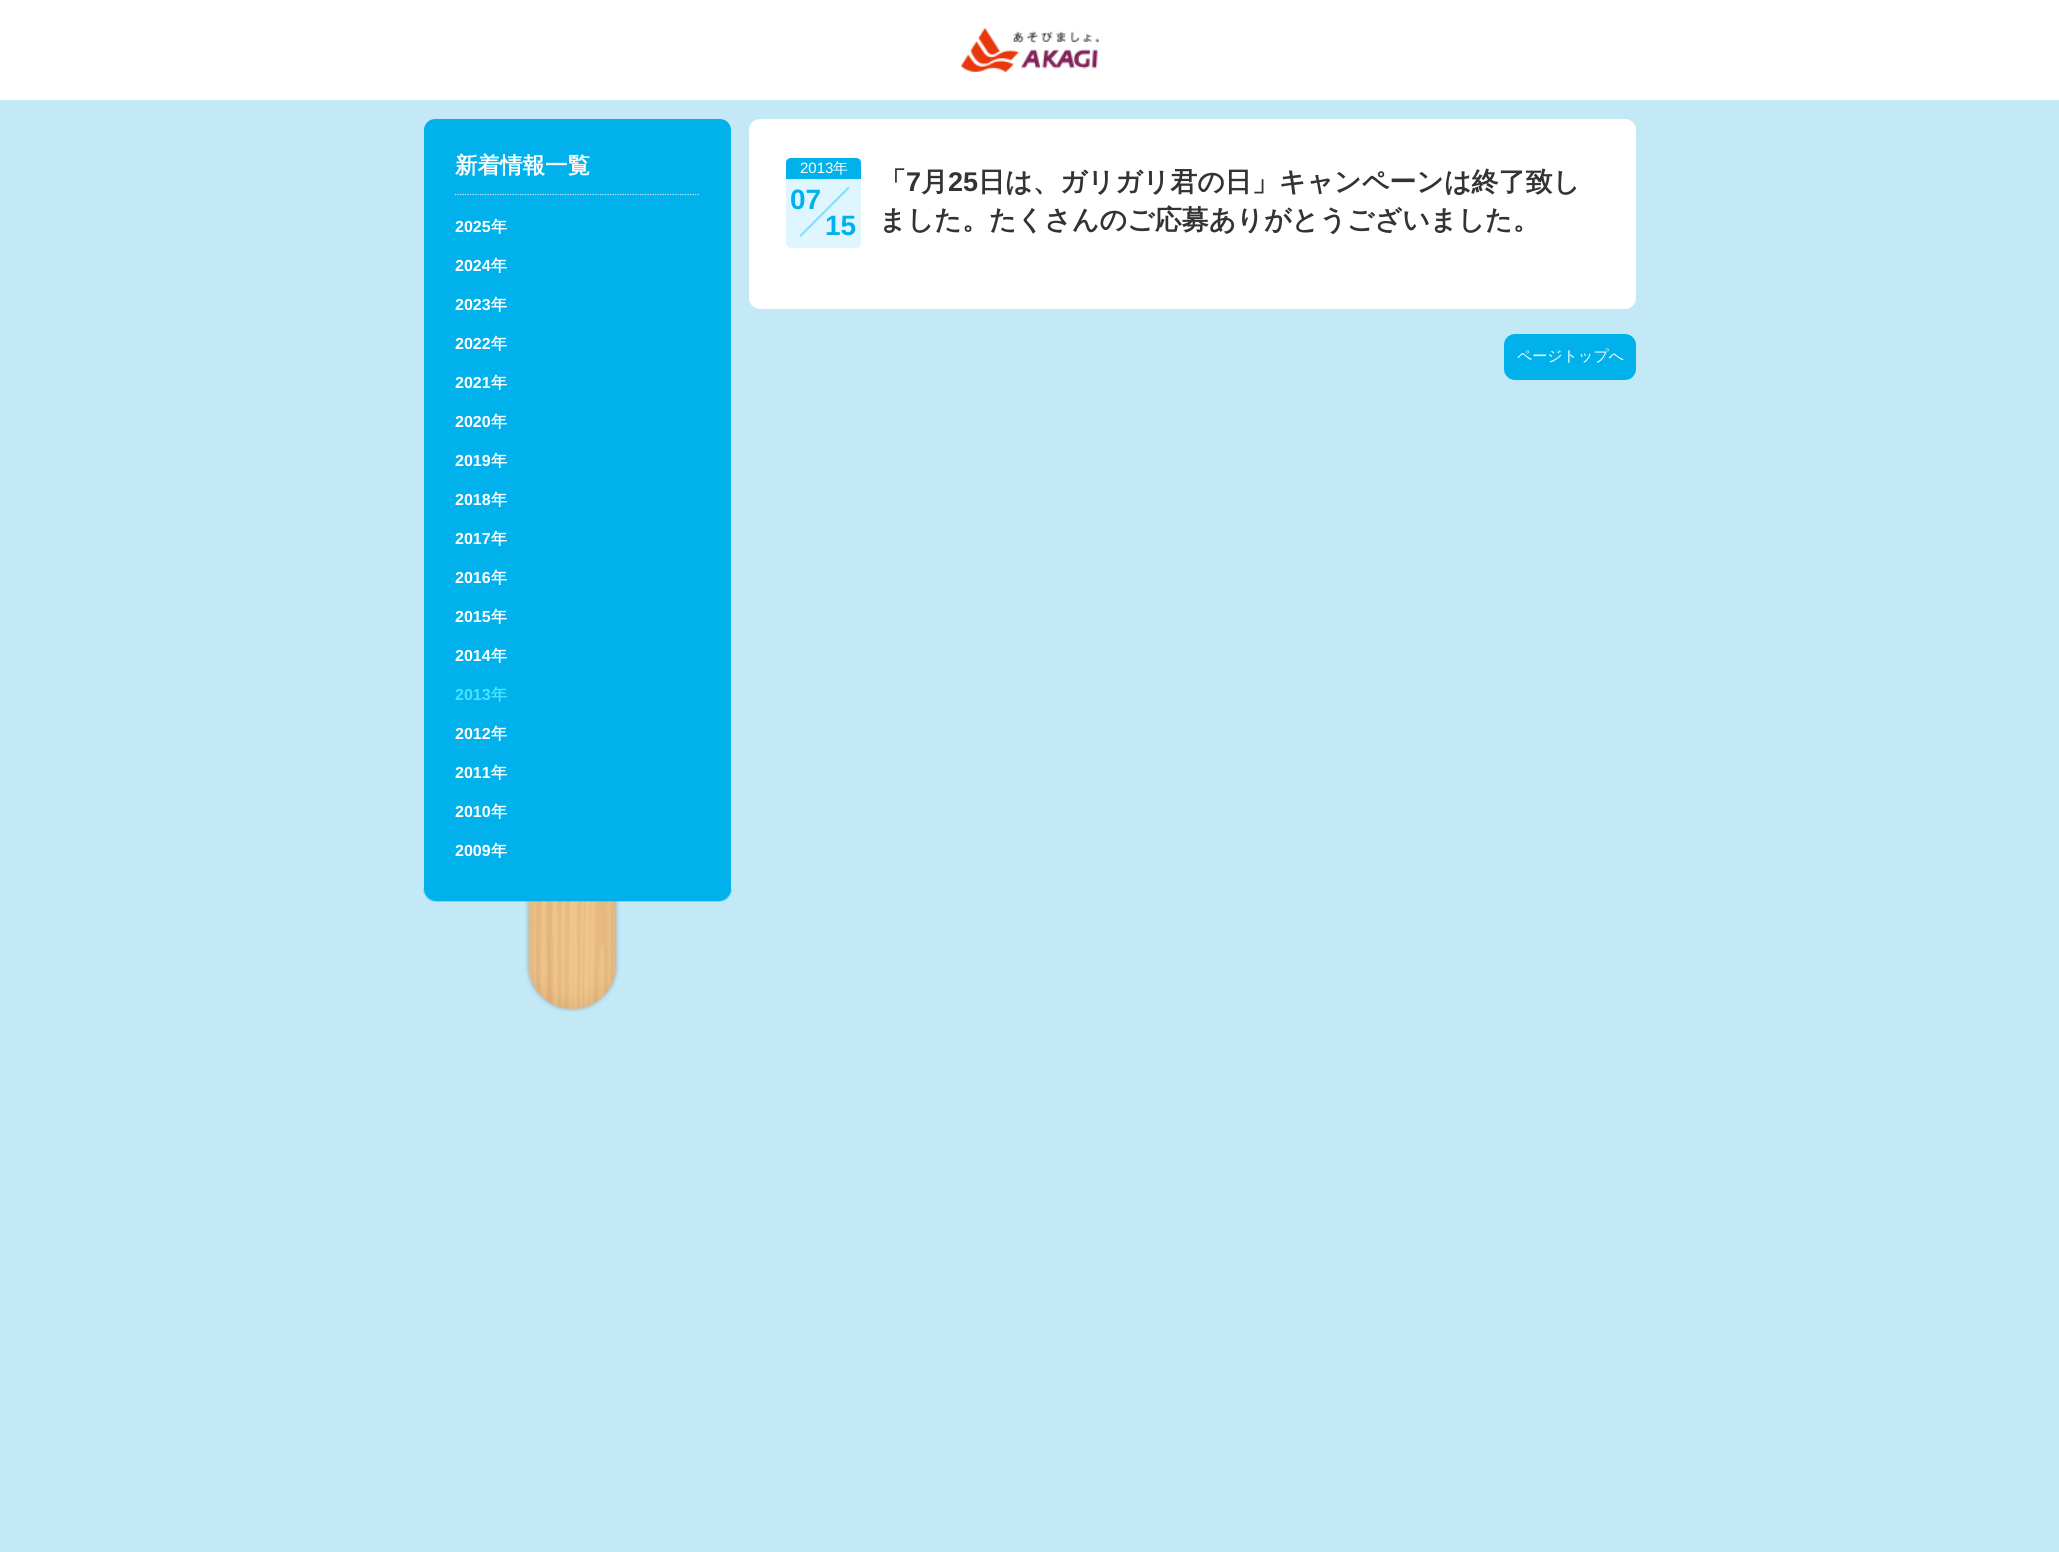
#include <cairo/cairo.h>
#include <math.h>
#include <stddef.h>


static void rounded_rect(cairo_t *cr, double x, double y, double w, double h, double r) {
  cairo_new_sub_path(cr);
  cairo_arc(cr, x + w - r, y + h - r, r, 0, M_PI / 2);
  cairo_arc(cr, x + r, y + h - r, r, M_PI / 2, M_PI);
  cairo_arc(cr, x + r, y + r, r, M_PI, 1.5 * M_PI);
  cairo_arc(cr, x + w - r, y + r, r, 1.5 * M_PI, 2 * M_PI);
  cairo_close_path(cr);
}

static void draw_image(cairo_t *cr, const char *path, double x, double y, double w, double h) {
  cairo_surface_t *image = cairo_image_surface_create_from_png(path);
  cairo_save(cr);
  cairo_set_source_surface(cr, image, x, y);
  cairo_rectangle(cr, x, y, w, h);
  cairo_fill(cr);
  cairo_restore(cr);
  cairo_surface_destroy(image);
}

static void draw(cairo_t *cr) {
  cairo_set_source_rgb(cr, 195 / 255.0, 232 / 255.0, 246 / 255.0);
  cairo_paint(cr);
  cairo_set_source_rgb(cr, 1, 1, 1);
  cairo_rectangle(cr, 0, 0, 2059, 100);
  cairo_fill(cr);
  draw_image(cr, "images/1.png", 961, 28, 138, 44);
  draw_image(cr, "images/2.png", 423, 888, 309, 124);
  cairo_set_source_rgb(cr, 0, 177 / 255.0, 236 / 255.0);
  cairo_new_path(cr);
  cairo_move_to(cr, 435, 119);
  cairo_line_to(cr, 720, 119);
  cairo_curve_to(cr, 726, 119, 731, 124, 731, 130);
  cairo_line_to(cr, 731, 889);
  cairo_line_to(cr, 424, 889);
  cairo_line_to(cr, 424, 130);
  cairo_curve_to(cr, 424, 124, 429, 119, 435, 119);
  cairo_close_path(cr);
  cairo_fill(cr);
  cairo_new_path(cr);
  cairo_move_to(cr, 455, 194.5);
  cairo_line_to(cr, 700, 194.5);
  cairo_set_source_rgb(cr, 195 / 255.0, 232 / 255.0, 246 / 255.0);
  cairo_set_line_width(cr, 1.2);
  cairo_set_dash(cr, (double[]){1.25, 1.25}, 2, 0);
  cairo_stroke(cr);
  cairo_set_source_rgb(cr, 1, 1, 1);
  rounded_rect(cr, 749, 119, 887, 190, 11);
  cairo_fill(cr);
  cairo_set_source_rgb(cr, 224 / 255.0, 246 / 255.0, 1);
  rounded_rect(cr, 786, 158, 75, 90, 5);
  cairo_fill(cr);
  draw_image(cr, "images/3.png", 798, 186, 52, 52);
  cairo_set_source_rgb(cr, 0, 177 / 255.0, 236 / 255.0);
  cairo_new_path(cr);
  cairo_move_to(cr, 791, 158);
  cairo_line_to(cr, 856, 158);
  cairo_curve_to(cr, 859, 158, 861, 160, 861, 163);
  cairo_line_to(cr, 861, 179);
  cairo_line_to(cr, 786, 179);
  cairo_line_to(cr, 786, 163);
  cairo_curve_to(cr, 786, 160, 788, 158, 791, 158);
  cairo_close_path(cr);
  cairo_fill(cr);
  rounded_rect(cr, 1504, 334, 132, 46, 11);
  cairo_fill(cr);
  cairo_select_font_face(cr, "WenQuanYi Zen Hei", CAIRO_FONT_SLANT_NORMAL, CAIRO_FONT_WEIGHT_BOLD);
  cairo_set_font_size(cr, 22.5);
  cairo_set_source_rgb(cr, 1, 1, 1);
  cairo_move_to(cr, 455, 173);
  cairo_show_text(cr, "新着情報一覧");
  cairo_select_font_face(cr, "Liberation Sans", CAIRO_FONT_SLANT_NORMAL, CAIRO_FONT_WEIGHT_BOLD);
  cairo_set_font_size(cr, 16);
  cairo_move_to(cr, 455, 232);
  cairo_show_text(cr, "2025");
  cairo_select_font_face(cr, "WenQuanYi Zen Hei", CAIRO_FONT_SLANT_NORMAL, CAIRO_FONT_WEIGHT_BOLD);
  cairo_move_to(cr, 491, 232);
  cairo_show_text(cr, "年");
  cairo_select_font_face(cr, "Liberation Sans", CAIRO_FONT_SLANT_NORMAL, CAIRO_FONT_WEIGHT_BOLD);
  cairo_move_to(cr, 455, 271);
  cairo_show_text(cr, "2024");
  cairo_select_font_face(cr, "WenQuanYi Zen Hei", CAIRO_FONT_SLANT_NORMAL, CAIRO_FONT_WEIGHT_BOLD);
  cairo_move_to(cr, 491, 271);
  cairo_show_text(cr, "年");
  cairo_select_font_face(cr, "Liberation Sans", CAIRO_FONT_SLANT_NORMAL, CAIRO_FONT_WEIGHT_BOLD);
  cairo_move_to(cr, 455, 310);
  cairo_show_text(cr, "2023");
  cairo_select_font_face(cr, "WenQuanYi Zen Hei", CAIRO_FONT_SLANT_NORMAL, CAIRO_FONT_WEIGHT_BOLD);
  cairo_move_to(cr, 491, 310);
  cairo_show_text(cr, "年");
  cairo_select_font_face(cr, "Liberation Sans", CAIRO_FONT_SLANT_NORMAL, CAIRO_FONT_WEIGHT_BOLD);
  cairo_move_to(cr, 455, 349);
  cairo_show_text(cr, "2022");
  cairo_select_font_face(cr, "WenQuanYi Zen Hei", CAIRO_FONT_SLANT_NORMAL, CAIRO_FONT_WEIGHT_BOLD);
  cairo_move_to(cr, 491, 349);
  cairo_show_text(cr, "年");
  cairo_select_font_face(cr, "Liberation Sans", CAIRO_FONT_SLANT_NORMAL, CAIRO_FONT_WEIGHT_BOLD);
  cairo_move_to(cr, 455, 388);
  cairo_show_text(cr, "2021");
  cairo_select_font_face(cr, "WenQuanYi Zen Hei", CAIRO_FONT_SLANT_NORMAL, CAIRO_FONT_WEIGHT_BOLD);
  cairo_move_to(cr, 491, 388);
  cairo_show_text(cr, "年");
  cairo_select_font_face(cr, "Liberation Sans", CAIRO_FONT_SLANT_NORMAL, CAIRO_FONT_WEIGHT_BOLD);
  cairo_move_to(cr, 455, 427);
  cairo_show_text(cr, "2020");
  cairo_select_font_face(cr, "WenQuanYi Zen Hei", CAIRO_FONT_SLANT_NORMAL, CAIRO_FONT_WEIGHT_BOLD);
  cairo_move_to(cr, 491, 427);
  cairo_show_text(cr, "年");
  cairo_select_font_face(cr, "Liberation Sans", CAIRO_FONT_SLANT_NORMAL, CAIRO_FONT_WEIGHT_BOLD);
  cairo_move_to(cr, 455, 466);
  cairo_show_text(cr, "2019");
  cairo_select_font_face(cr, "WenQuanYi Zen Hei", CAIRO_FONT_SLANT_NORMAL, CAIRO_FONT_WEIGHT_BOLD);
  cairo_move_to(cr, 491, 466);
  cairo_show_text(cr, "年");
  cairo_select_font_face(cr, "Liberation Sans", CAIRO_FONT_SLANT_NORMAL, CAIRO_FONT_WEIGHT_BOLD);
  cairo_move_to(cr, 455, 505);
  cairo_show_text(cr, "2018");
  cairo_select_font_face(cr, "WenQuanYi Zen Hei", CAIRO_FONT_SLANT_NORMAL, CAIRO_FONT_WEIGHT_BOLD);
  cairo_move_to(cr, 491, 505);
  cairo_show_text(cr, "年");
  cairo_select_font_face(cr, "Liberation Sans", CAIRO_FONT_SLANT_NORMAL, CAIRO_FONT_WEIGHT_BOLD);
  cairo_move_to(cr, 455, 544);
  cairo_show_text(cr, "2017");
  cairo_select_font_face(cr, "WenQuanYi Zen Hei", CAIRO_FONT_SLANT_NORMAL, CAIRO_FONT_WEIGHT_BOLD);
  cairo_move_to(cr, 491, 544);
  cairo_show_text(cr, "年");
  cairo_select_font_face(cr, "Liberation Sans", CAIRO_FONT_SLANT_NORMAL, CAIRO_FONT_WEIGHT_BOLD);
  cairo_move_to(cr, 455, 583);
  cairo_show_text(cr, "2016");
  cairo_select_font_face(cr, "WenQuanYi Zen Hei", CAIRO_FONT_SLANT_NORMAL, CAIRO_FONT_WEIGHT_BOLD);
  cairo_move_to(cr, 491, 583);
  cairo_show_text(cr, "年");
  cairo_select_font_face(cr, "Liberation Sans", CAIRO_FONT_SLANT_NORMAL, CAIRO_FONT_WEIGHT_BOLD);
  cairo_move_to(cr, 455, 622);
  cairo_show_text(cr, "2015");
  cairo_select_font_face(cr, "WenQuanYi Zen Hei", CAIRO_FONT_SLANT_NORMAL, CAIRO_FONT_WEIGHT_BOLD);
  cairo_move_to(cr, 491, 622);
  cairo_show_text(cr, "年");
  cairo_select_font_face(cr, "Liberation Sans", CAIRO_FONT_SLANT_NORMAL, CAIRO_FONT_WEIGHT_BOLD);
  cairo_move_to(cr, 455, 661);
  cairo_show_text(cr, "2014");
  cairo_select_font_face(cr, "WenQuanYi Zen Hei", CAIRO_FONT_SLANT_NORMAL, CAIRO_FONT_WEIGHT_BOLD);
  cairo_move_to(cr, 491, 661);
  cairo_show_text(cr, "年");
  cairo_select_font_face(cr, "Liberation Sans", CAIRO_FONT_SLANT_NORMAL, CAIRO_FONT_WEIGHT_BOLD);
  cairo_set_source_rgb(cr, 71 / 255.0, 227 / 255.0, 1);
  cairo_move_to(cr, 455, 700);
  cairo_show_text(cr, "2013");
  cairo_select_font_face(cr, "WenQuanYi Zen Hei", CAIRO_FONT_SLANT_NORMAL, CAIRO_FONT_WEIGHT_BOLD);
  cairo_move_to(cr, 491, 700);
  cairo_show_text(cr, "年");
  cairo_select_font_face(cr, "Liberation Sans", CAIRO_FONT_SLANT_NORMAL, CAIRO_FONT_WEIGHT_BOLD);
  cairo_set_source_rgb(cr, 1, 1, 1);
  cairo_move_to(cr, 455, 739);
  cairo_show_text(cr, "2012");
  cairo_select_font_face(cr, "WenQuanYi Zen Hei", CAIRO_FONT_SLANT_NORMAL, CAIRO_FONT_WEIGHT_BOLD);
  cairo_move_to(cr, 491, 739);
  cairo_show_text(cr, "年");
  cairo_select_font_face(cr, "Liberation Sans", CAIRO_FONT_SLANT_NORMAL, CAIRO_FONT_WEIGHT_BOLD);
  cairo_move_to(cr, 455, 778);
  cairo_show_text(cr, "2011");
  cairo_select_font_face(cr, "WenQuanYi Zen Hei", CAIRO_FONT_SLANT_NORMAL, CAIRO_FONT_WEIGHT_BOLD);
  cairo_move_to(cr, 491, 778);
  cairo_show_text(cr, "年");
  cairo_select_font_face(cr, "Liberation Sans", CAIRO_FONT_SLANT_NORMAL, CAIRO_FONT_WEIGHT_BOLD);
  cairo_move_to(cr, 455, 817);
  cairo_show_text(cr, "2010");
  cairo_select_font_face(cr, "WenQuanYi Zen Hei", CAIRO_FONT_SLANT_NORMAL, CAIRO_FONT_WEIGHT_BOLD);
  cairo_move_to(cr, 491, 817);
  cairo_show_text(cr, "年");
  cairo_select_font_face(cr, "Liberation Sans", CAIRO_FONT_SLANT_NORMAL, CAIRO_FONT_WEIGHT_BOLD);
  cairo_move_to(cr, 455, 856);
  cairo_show_text(cr, "2009");
  cairo_select_font_face(cr, "WenQuanYi Zen Hei", CAIRO_FONT_SLANT_NORMAL, CAIRO_FONT_WEIGHT_BOLD);
  cairo_move_to(cr, 491, 856);
  cairo_show_text(cr, "年");
  cairo_select_font_face(cr, "Liberation Sans", CAIRO_FONT_SLANT_NORMAL, CAIRO_FONT_WEIGHT_NORMAL);
  cairo_set_font_size(cr, 15);
  cairo_move_to(cr, 800, 173);
  cairo_show_text(cr, "2013");
  cairo_select_font_face(cr, "WenQuanYi Zen Hei Medium", CAIRO_FONT_SLANT_NORMAL, CAIRO_FONT_WEIGHT_NORMAL);
  cairo_move_to(cr, 833, 173);
  cairo_show_text(cr, "年");
  cairo_select_font_face(cr, "Liberation Sans", CAIRO_FONT_SLANT_NORMAL, CAIRO_FONT_WEIGHT_BOLD);
  cairo_set_font_size(cr, 28);
  cairo_set_source_rgb(cr, 0, 177 / 255.0, 236 / 255.0);
  cairo_move_to(cr, 790, 209);
  cairo_show_text(cr, "07");
  cairo_move_to(cr, 825, 235);
  cairo_show_text(cr, "15");
  cairo_select_font_face(cr, "WenQuanYi Zen Hei", CAIRO_FONT_SLANT_NORMAL, CAIRO_FONT_WEIGHT_BOLD);
  cairo_set_font_size(cr, 27);
  cairo_set_source_rgb(cr, 51 / 255.0, 51 / 255.0, 51 / 255.0);
  cairo_move_to(cr, 879, 191);
  cairo_show_text(cr, "「");
  cairo_select_font_face(cr, "Liberation Sans", CAIRO_FONT_SLANT_NORMAL, CAIRO_FONT_WEIGHT_BOLD);
  cairo_move_to(cr, 906, 191);
  cairo_show_text(cr, "7");
  cairo_select_font_face(cr, "WenQuanYi Zen Hei", CAIRO_FONT_SLANT_NORMAL, CAIRO_FONT_WEIGHT_BOLD);
  cairo_move_to(cr, 921, 191);
  cairo_show_text(cr, "月");
  cairo_select_font_face(cr, "Liberation Sans", CAIRO_FONT_SLANT_NORMAL, CAIRO_FONT_WEIGHT_BOLD);
  cairo_move_to(cr, 948, 191);
  cairo_show_text(cr, "25");
  cairo_select_font_face(cr, "WenQuanYi Zen Hei", CAIRO_FONT_SLANT_NORMAL, CAIRO_FONT_WEIGHT_BOLD);
  cairo_move_to(cr, 978, 191);
  cairo_show_text(cr, "日は、ガリガリ君の日」キャンペーンは終了致し");
  cairo_move_to(cr, 879, 229);
  cairo_show_text(cr, "ました。たくさんのご応募ありがとうございました。");
  cairo_select_font_face(cr, "WenQuanYi Zen Hei Medium", CAIRO_FONT_SLANT_NORMAL, CAIRO_FONT_WEIGHT_NORMAL);
  cairo_set_font_size(cr, 15);
  cairo_set_source_rgb(cr, 1, 1, 1);
  cairo_move_to(cr, 1517, 361);
  cairo_show_text(cr, "ページトップへ");
}

int main(void) {
  cairo_surface_t *surface = cairo_image_surface_create(CAIRO_FORMAT_RGB24, 2059, 1552);
  cairo_t *cr = cairo_create(surface);
  cairo_font_options_t *options = cairo_font_options_create();
  cairo_font_options_set_hint_metrics(options, CAIRO_HINT_METRICS_OFF);
  cairo_font_options_set_hint_style(options, CAIRO_HINT_STYLE_NONE);
  cairo_set_font_options(cr, options);
  cairo_set_miter_limit(cr, 4);
  draw(cr);
  cairo_surface_write_to_png(surface, "out.png");
  cairo_font_options_destroy(options);
  cairo_destroy(cr);
  cairo_surface_destroy(surface);
  return 0;
}
